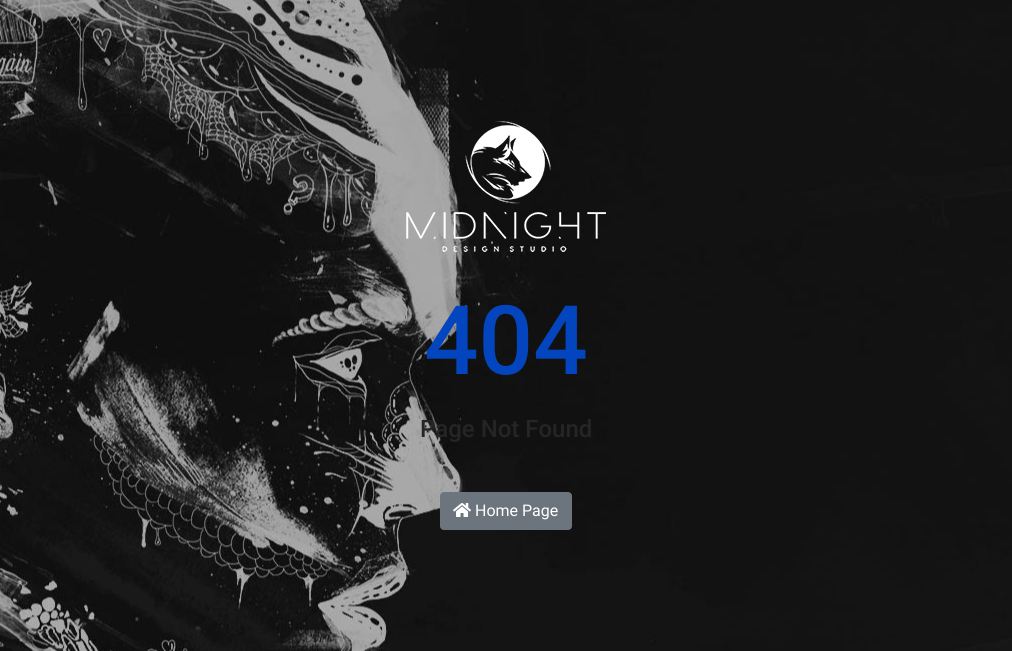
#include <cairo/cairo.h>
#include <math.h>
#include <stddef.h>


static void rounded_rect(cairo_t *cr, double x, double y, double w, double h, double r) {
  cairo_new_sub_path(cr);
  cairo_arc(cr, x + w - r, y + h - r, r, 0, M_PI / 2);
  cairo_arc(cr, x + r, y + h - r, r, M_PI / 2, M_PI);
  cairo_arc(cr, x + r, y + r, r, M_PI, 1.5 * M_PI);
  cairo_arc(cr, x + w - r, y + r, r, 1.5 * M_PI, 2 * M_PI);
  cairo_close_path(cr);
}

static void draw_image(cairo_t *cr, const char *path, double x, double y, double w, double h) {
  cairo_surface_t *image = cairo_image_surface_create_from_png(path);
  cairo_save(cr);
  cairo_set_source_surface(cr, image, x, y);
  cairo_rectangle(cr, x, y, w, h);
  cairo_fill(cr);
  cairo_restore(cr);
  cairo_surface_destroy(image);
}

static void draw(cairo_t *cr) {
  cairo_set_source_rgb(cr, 1, 1, 1);
  cairo_paint(cr);
  draw_image(cr, "images/1.png", 0, 0, 1012, 651);
  draw_image(cr, "images/2.png", 406, 121, 200, 131);
  cairo_set_source_rgb(cr, 108 / 255.0, 117 / 255.0, 125 / 255.0);
  rounded_rect(cr, 440.5, 492.5, 131, 37, 3.5);
  cairo_fill_preserve(cr);
  cairo_set_line_width(cr, 1);
  cairo_stroke(cr);
  draw_image(cr, "images/3.png", 453, 503, 18, 14);
  cairo_select_font_face(cr, "Roboto Medium", CAIRO_FONT_SLANT_NORMAL, CAIRO_FONT_WEIGHT_NORMAL);
  cairo_set_font_size(cr, 96);
  cairo_set_source_rgb(cr, 3 / 255.0, 69 / 255.0, 191 / 255.0);
  cairo_move_to(cr, 424, 374);
  cairo_show_text(cr, "404");
  cairo_set_font_size(cr, 24);
  cairo_set_source_rgb(cr, 37 / 255.0, 37 / 255.0, 37 / 255.0);
  cairo_move_to(cr, 420, 437);
  cairo_show_text(cr, "Page Not Found");
  cairo_select_font_face(cr, "Roboto", CAIRO_FONT_SLANT_NORMAL, CAIRO_FONT_WEIGHT_NORMAL);
  cairo_set_font_size(cr, 16);
  cairo_set_source_rgb(cr, 1, 1, 1);
  cairo_move_to(cr, 475, 516);
  cairo_show_text(cr, "Home Page");
}

int main(void) {
  cairo_surface_t *surface = cairo_image_surface_create(CAIRO_FORMAT_RGB24, 1012, 651);
  cairo_t *cr = cairo_create(surface);
  cairo_font_options_t *options = cairo_font_options_create();
  cairo_font_options_set_hint_metrics(options, CAIRO_HINT_METRICS_OFF);
  cairo_font_options_set_hint_style(options, CAIRO_HINT_STYLE_NONE);
  cairo_set_font_options(cr, options);
  cairo_set_miter_limit(cr, 4);
  draw(cr);
  cairo_surface_write_to_png(surface, "out.png");
  cairo_font_options_destroy(options);
  cairo_destroy(cr);
  cairo_surface_destroy(surface);
  return 0;
}
